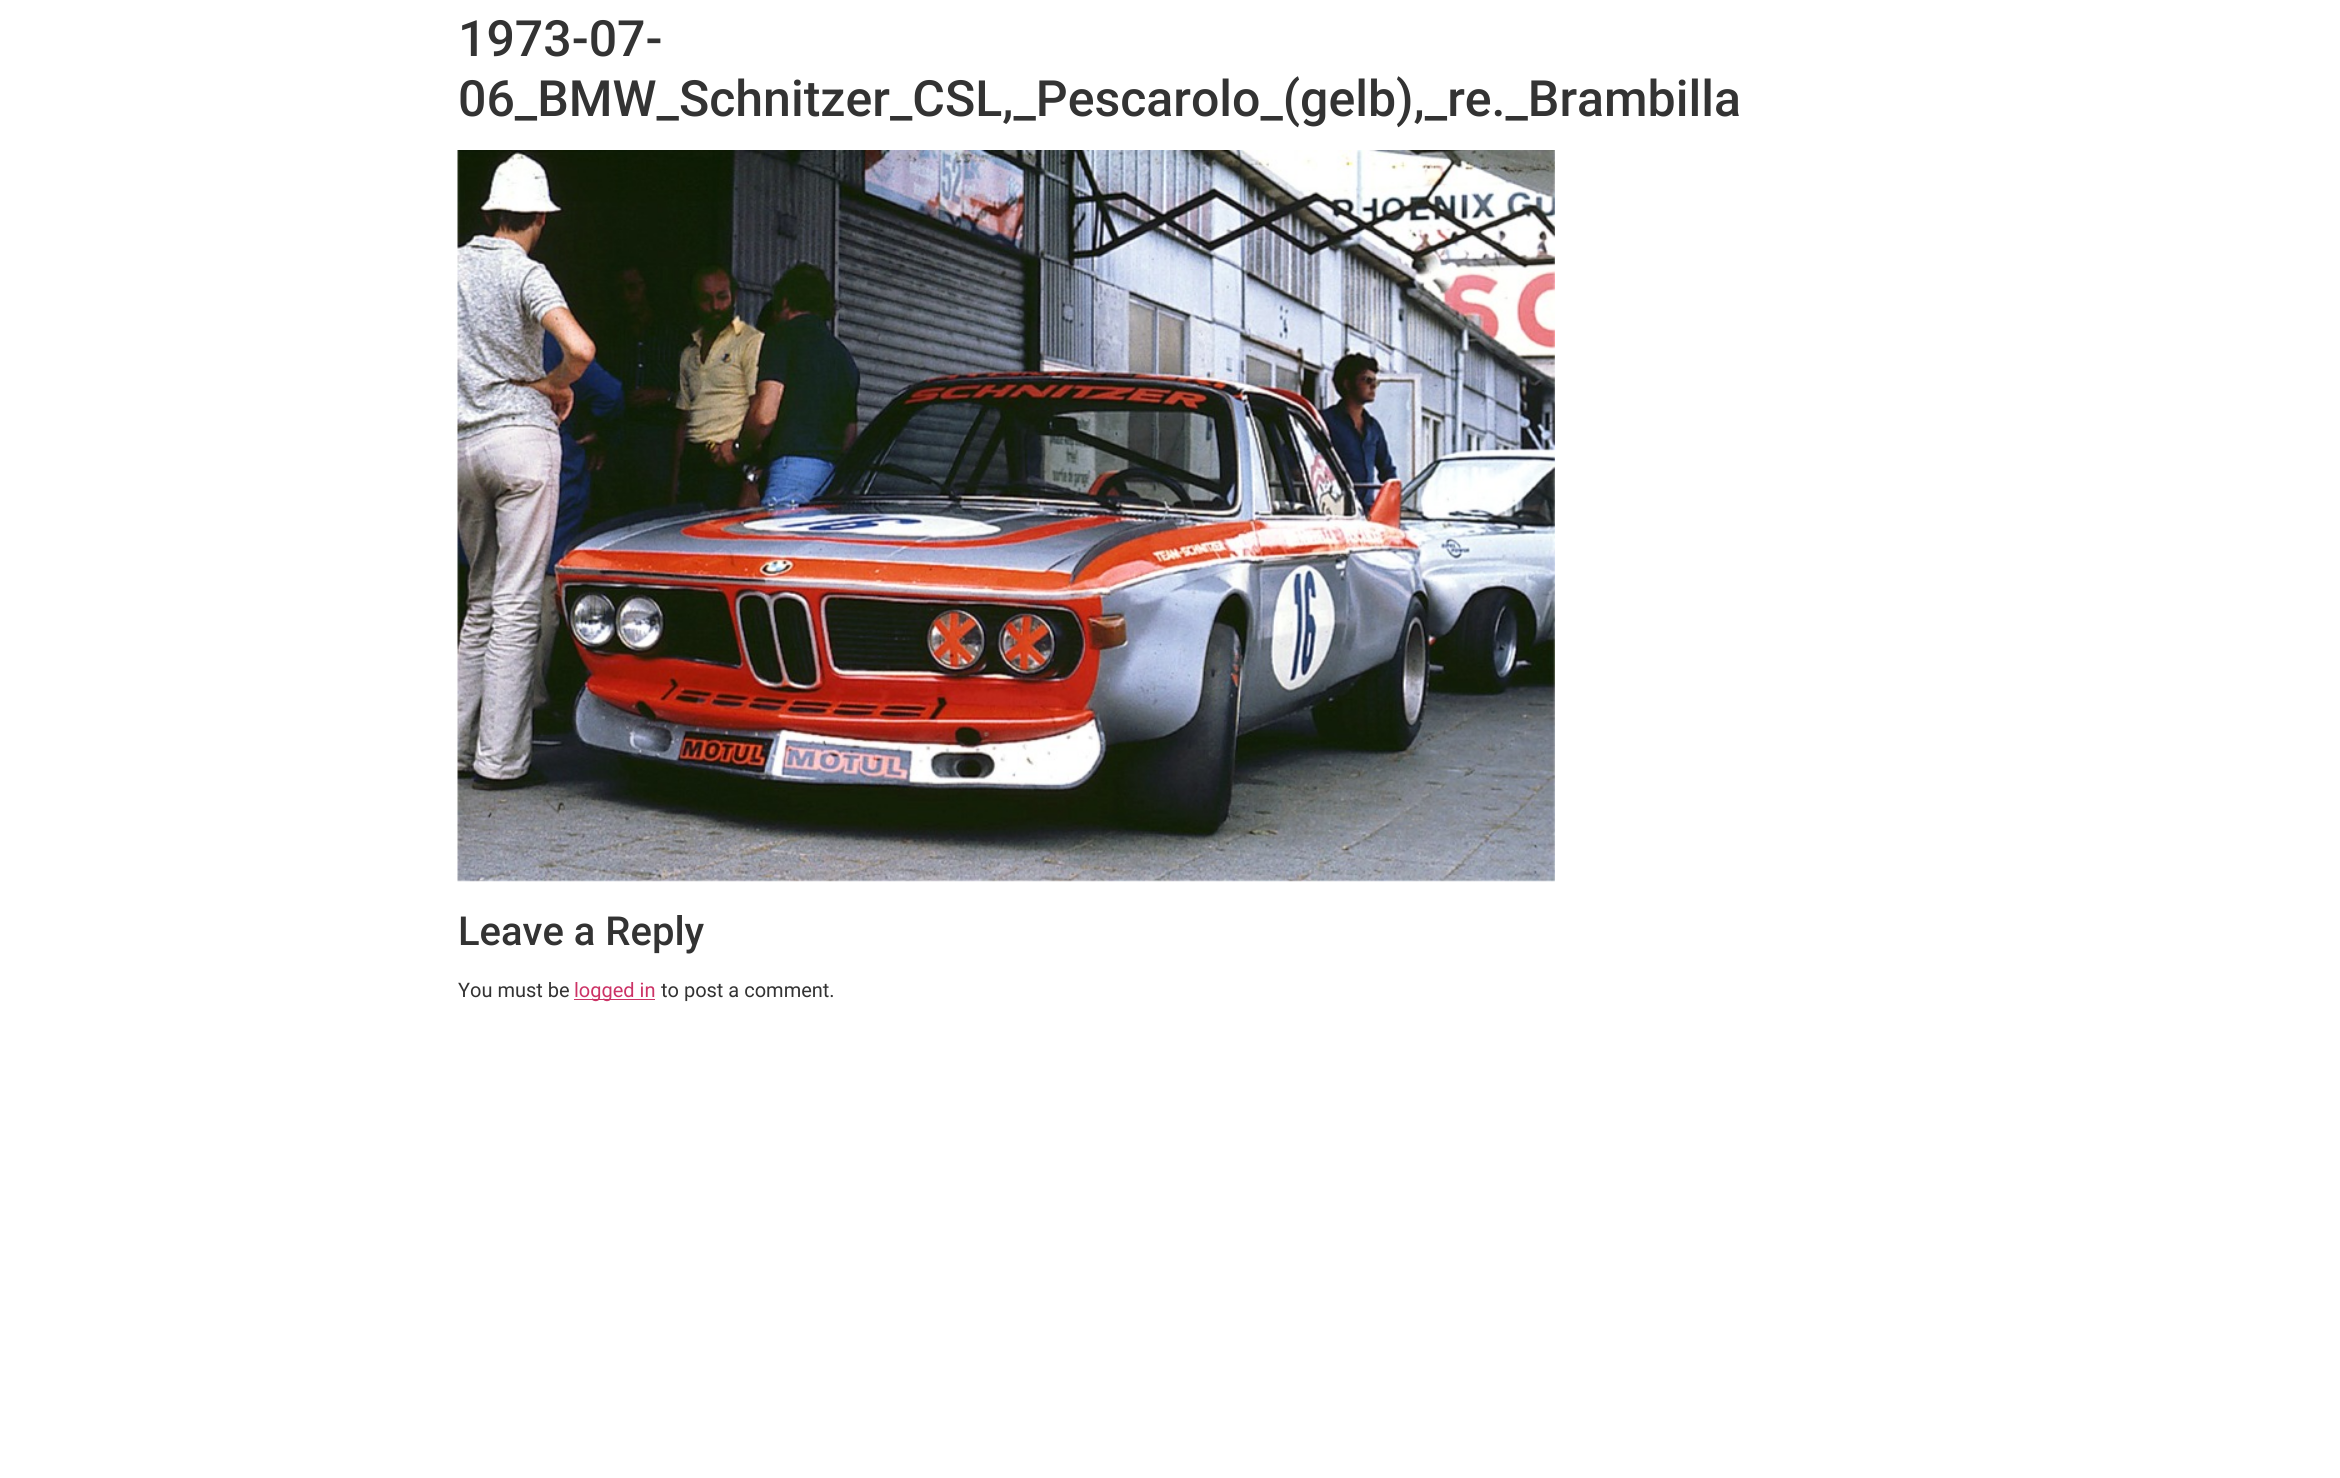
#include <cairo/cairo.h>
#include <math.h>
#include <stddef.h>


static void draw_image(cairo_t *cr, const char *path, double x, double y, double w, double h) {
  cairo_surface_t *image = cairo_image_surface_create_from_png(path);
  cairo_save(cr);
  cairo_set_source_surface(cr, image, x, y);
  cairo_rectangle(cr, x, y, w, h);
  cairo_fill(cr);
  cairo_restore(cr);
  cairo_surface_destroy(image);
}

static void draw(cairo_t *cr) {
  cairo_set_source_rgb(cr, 1, 1, 1);
  cairo_paint(cr);
  draw_image(cr, "images/1.png", 457, 150, 1098, 732);
  cairo_set_source_rgb(cr, 204 / 255.0, 51 / 255.0, 102 / 255.0);
  cairo_rectangle(cr, 574, 999, 81, 1);
  cairo_fill(cr);
  cairo_select_font_face(cr, "Roboto Medium", CAIRO_FONT_SLANT_NORMAL, CAIRO_FONT_WEIGHT_NORMAL);
  cairo_set_font_size(cr, 50);
  cairo_set_source_rgb(cr, 51 / 255.0, 51 / 255.0, 51 / 255.0);
  cairo_move_to(cr, 458, 56);
  cairo_show_text(cr, "1973-07-");
  cairo_move_to(cr, 458, 116);
  cairo_show_text(cr, "06_BMW_Schnitzer_CSL,_Pescarolo_(gelb),_re._Brambilla");
  cairo_set_font_size(cr, 40);
  cairo_move_to(cr, 458, 945);
  cairo_show_text(cr, "Leave a Reply");
  cairo_select_font_face(cr, "Roboto", CAIRO_FONT_SLANT_NORMAL, CAIRO_FONT_WEIGHT_NORMAL);
  cairo_set_font_size(cr, 20);
  cairo_move_to(cr, 458, 997);
  cairo_show_text(cr, "You must be");
  cairo_set_source_rgb(cr, 204 / 255.0, 51 / 255.0, 102 / 255.0);
  cairo_move_to(cr, 574, 997);
  cairo_show_text(cr, "logged in");
  cairo_set_source_rgb(cr, 51 / 255.0, 51 / 255.0, 51 / 255.0);
  cairo_move_to(cr, 661, 997);
  cairo_show_text(cr, "to post a comment.");
}

int main(void) {
  cairo_surface_t *surface = cairo_image_surface_create(CAIRO_FORMAT_RGB24, 2340, 1478);
  cairo_t *cr = cairo_create(surface);
  cairo_font_options_t *options = cairo_font_options_create();
  cairo_font_options_set_hint_metrics(options, CAIRO_HINT_METRICS_OFF);
  cairo_font_options_set_hint_style(options, CAIRO_HINT_STYLE_NONE);
  cairo_set_font_options(cr, options);
  cairo_set_miter_limit(cr, 4);
  draw(cr);
  cairo_surface_write_to_png(surface, "out.png");
  cairo_font_options_destroy(options);
  cairo_destroy(cr);
  cairo_surface_destroy(surface);
  return 0;
}
